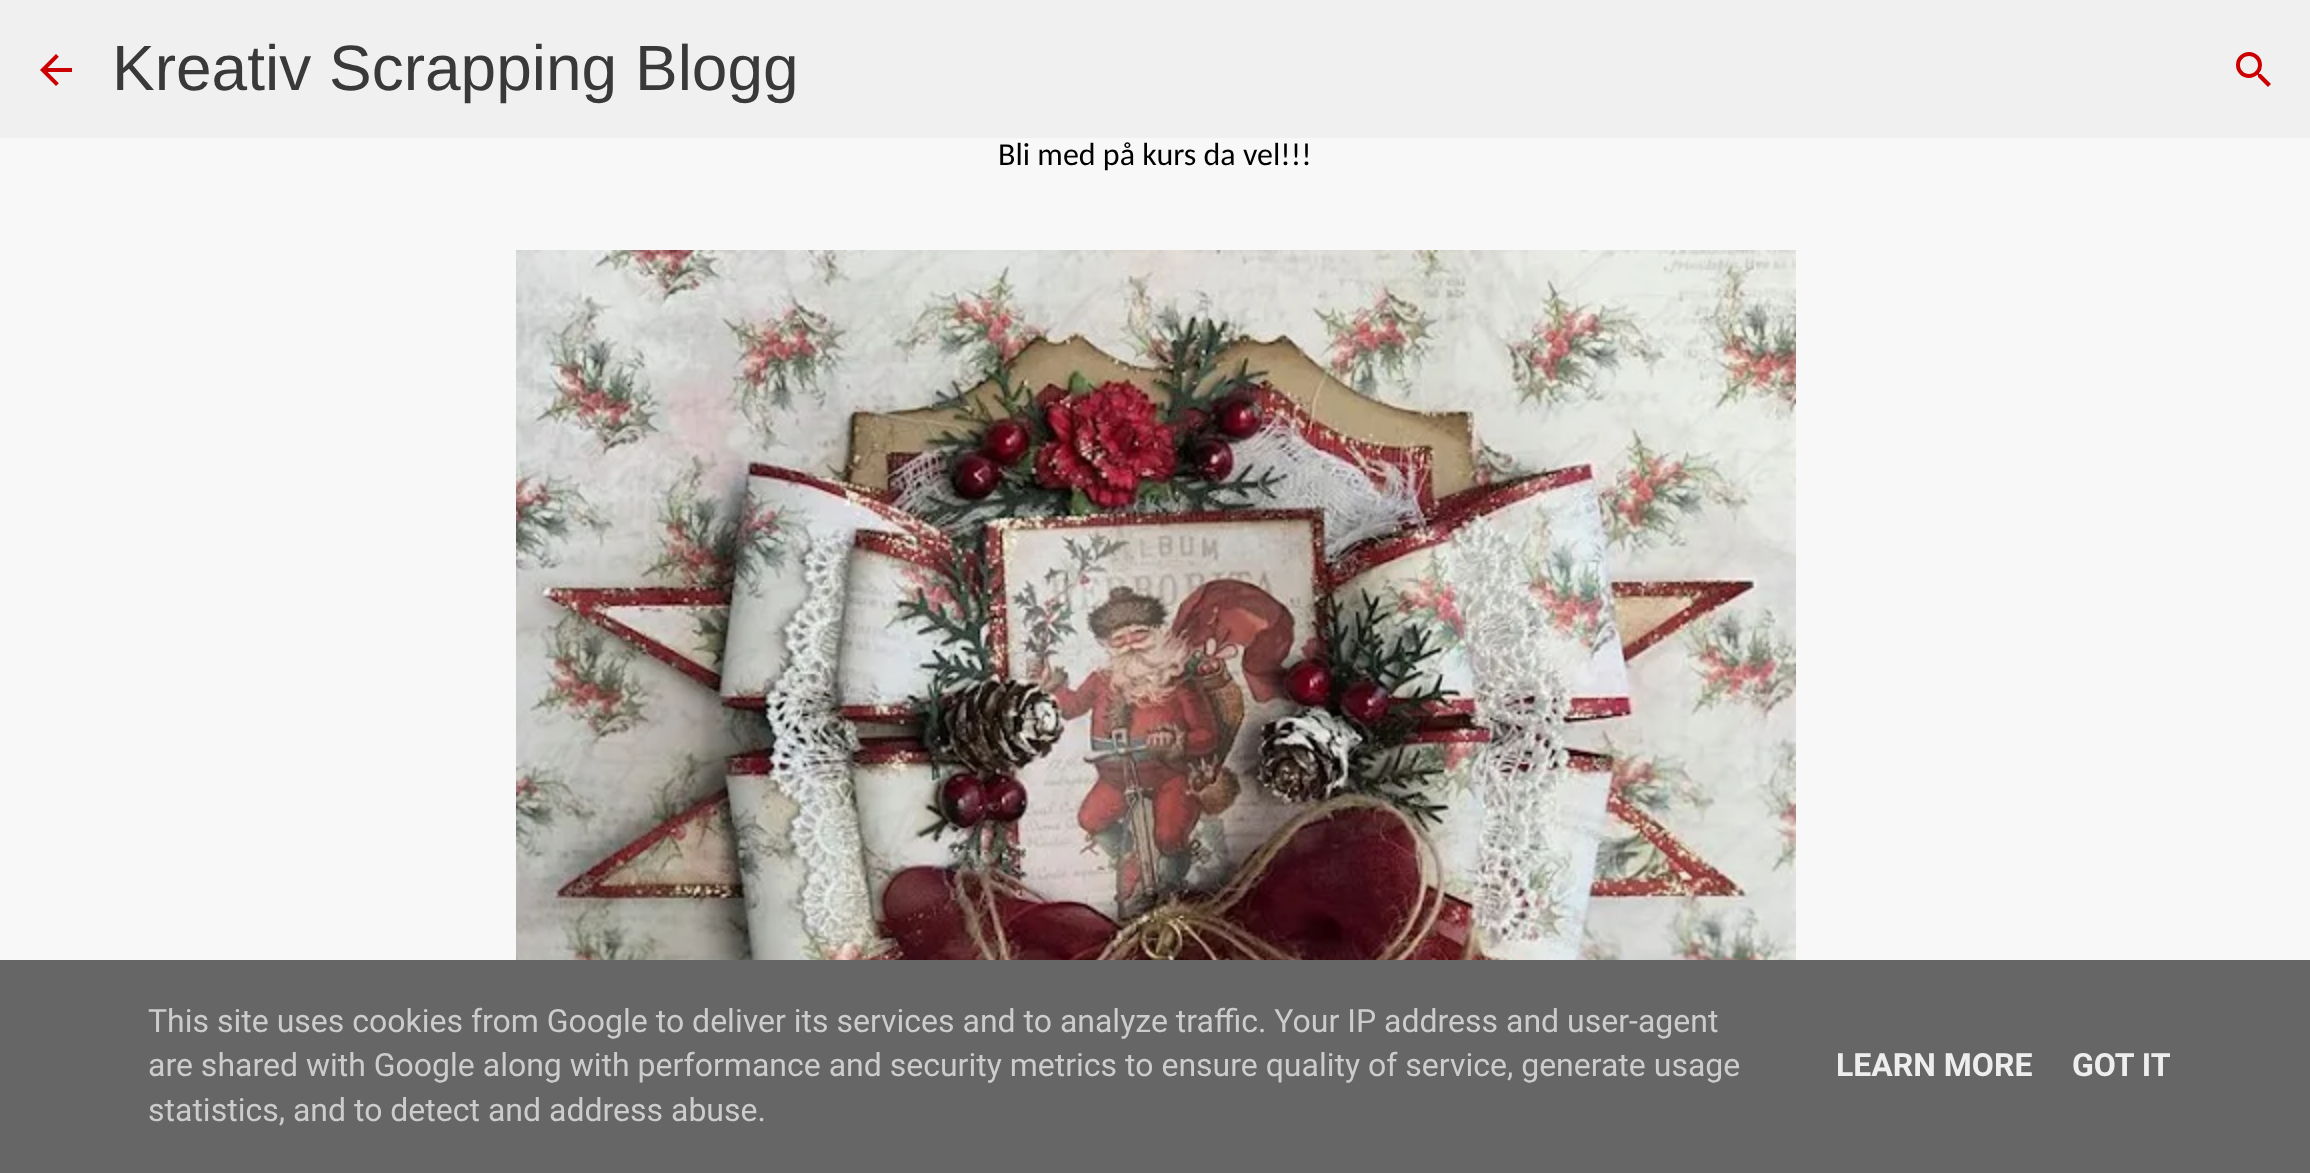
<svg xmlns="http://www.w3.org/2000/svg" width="2310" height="1173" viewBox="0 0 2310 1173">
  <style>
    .t1 { font: 64px Liberation Sans; fill: #393939; }
    .t2 { font: 32px Carlito; fill: #000; }
    .t3 { font: 32px Roboto; fill: #ccc; }
    .t4 { font: bold 32px Roboto; fill: #eee; }
  </style>
  <rect width="100%" height="100%" fill="#f8f8f8"/>
  <rect x="0" y="0" width="2310" height="138" fill="#f0f0f0"/>
  <image x="40" y="54" width="32" height="32" href="images/1.png"/>
  <text x="112" y="90" class="t1">Kreativ Scrapping Blogg</text>
  <image x="2236" y="52" width="35" height="35" href="images/2.png"/>
  <text x="998" y="165" class="t2">Bli med på kurs da vel!!!</text>
  <image x="516" y="250" width="1280" height="710" href="images/3.png"/>
  <rect x="0" y="960" width="2310" height="213" fill="#666"/>
  <text x="148" y="1032" class="t3">This site uses cookies from Google to deliver its services and to analyze traffic. Your IP address and user-agent</text>
  <text x="148" y="1076" class="t3">are shared with Google along with performance and security metrics to ensure quality of service, generate usage</text>
  <text x="148" y="1121" class="t3">statistics, and to detect and address abuse.</text>
  <text x="1836" y="1076" class="t4">LEARN MORE</text>
  <text x="2072" y="1076" class="t4">GOT IT</text>
</svg>
